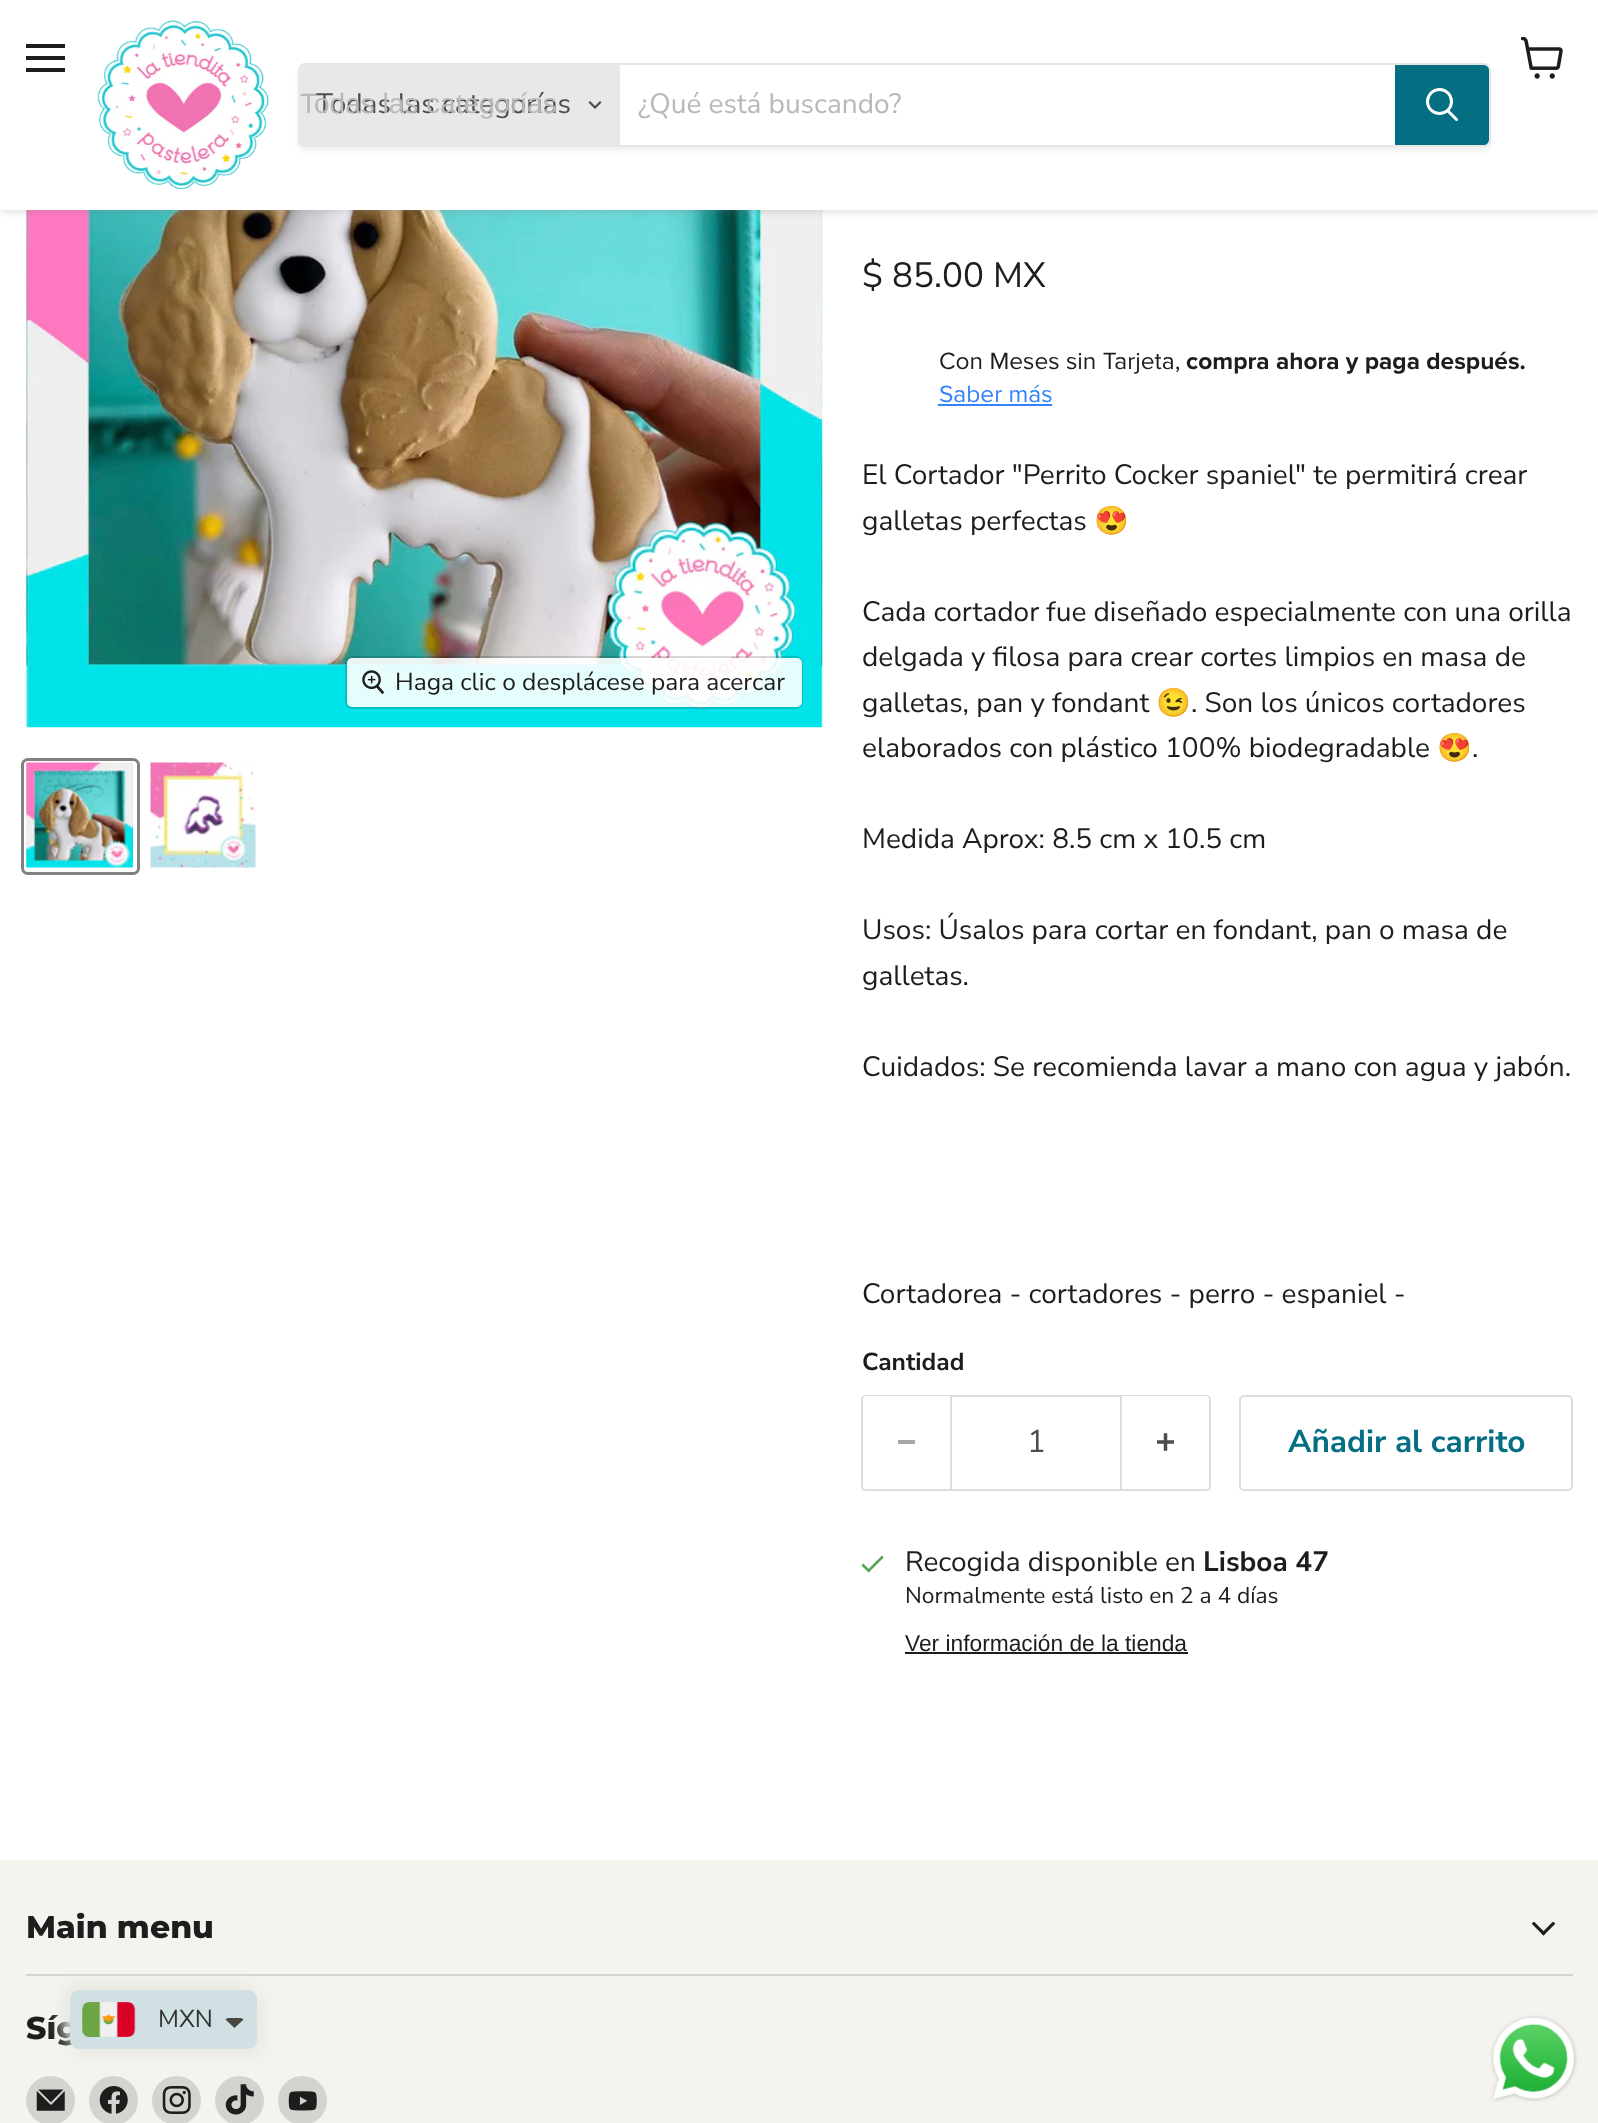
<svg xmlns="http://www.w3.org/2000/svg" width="1598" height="2123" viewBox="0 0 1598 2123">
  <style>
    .t1 { font: 28px Nunito Sans; fill: #4d4d4d; }
    .t2 { font: 28px Liberation Sans; fill: #b8b8b8; }
    .t3 { font: 28px Nunito Sans; fill: #b8b8b8; }
    .t4 { font: 24.5px Nunito Sans; fill: #1d1d1d; }
    .t5 { font: 35px Nunito Sans; fill: #1d1d1d; }
    .t6 { font: 24.5px Proxima Nova; fill: #1d1d1d; }
    .t7 { font: bold 24.5px Proxima Nova; fill: #1d1d1d; }
    .t8 { font: 24.5px Proxima Nova; fill: #3483fa; }
    .t9 { font: 28px Nunito Sans; fill: #1d1d1d; }
    .t10 { font: 28px Noto Color Emoji; fill: #1d1d1d; }
    .t11 { font: bold 24.5px Nunito Sans; fill: #1d1d1d; }
    .t12 { font: 31.5px Nunito Sans; fill: #4d4d4d; }
    .t13 { font: bold 31.5px Nunito Sans; fill: #046e82; }
    .t14 { font: bold 28px Nunito Sans; fill: #1d1d1d; }
    .t15 { font: 22.75px Nunito Sans; fill: #1d1d1d; }
    .t16 { font: 22.75px Liberation Sans; fill: #1d1d1d; }
    .t17 { font: 800 31.5px Montserrat; fill: #1d1d1d; }
    .t18 { font: 24.5px Nunito Sans; fill: #333; }
  </style>
  <defs>
    <clipPath id="clip1"><path d="M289 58H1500V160H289ZM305 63H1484C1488 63 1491 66 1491 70V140C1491 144 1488 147 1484 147H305C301 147 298 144 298 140V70C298 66 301 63 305 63Z" clip-rule="evenodd"/></clipPath>
  </defs>
  <rect width="100%" height="100%" fill="#fff"/>
  <image x="26" y="210" width="797" height="518" href="images/3.png"/>
  <rect x="0" y="2" width="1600" height="210" fill="#80808040" filter="blur(3.5px)"/>
  <rect x="0" y="0" width="1598" height="210" fill="#fff"/>
  <rect x="26" y="44" width="39" height="4" fill="#1d1d1d"/>
  <rect x="26" y="56" width="39" height="4" fill="#1d1d1d"/>
  <rect x="26" y="68" width="39" height="4" fill="#1d1d1d"/>
  <image x="1521" y="37" width="42" height="42" href="images/1.png"/>
  <image x="97" y="20" width="172" height="170" href="images/2.png"/>
  <g clip-path="url(#clip1)">
    <rect x="298" y="67" width="1193" height="84" rx="7" fill="#8080801c" filter="blur(2.5px)"/>
  </g>
  <rect x="299" y="64" width="1191" height="82" rx="6" fill="none" stroke="#80808033" stroke-width="2"/>
  <path d="M304 65H620V145H304C301 145 299 143 299 140V70C299 67 301 65 304 65Z" fill="#e8e8e8"/>
  <text x="316" y="113" class="t1">Todas las categorías</text>
  <text x="300" y="113" class="t2">Todas las categorías</text>
  <path d="M595 107.5L600 102.5M595 107.5L590 102.5" fill="none" stroke="#4d4d4d" stroke-width="2.2" stroke-linecap="square"/>
  <text x="638" y="113" class="t3">¿Qué está buscando?</text>
  <path d="M1396 66H1484C1486 66 1488 68 1488 70V140C1488 142 1486 144 1484 144H1396Z" fill="#046e82" stroke="#046e82" stroke-width="2"/>
  <path d="M1456.5 119.5L1448 111" fill="none" stroke="#fff" stroke-width="3" stroke-linecap="round"/>
  <circle cx="1439.5" cy="101.5" r="12" fill="none" stroke="#fff" stroke-width="3"/>
  <rect x="346" y="657" width="456" height="51" rx="6" fill="none" stroke="#00000026" stroke-width="2"/>
  <rect x="347" y="658" width="455" height="49" rx="5" fill="#ffffffe6"/>
  <image x="362" y="670" width="23" height="25" href="images/4.png"/>
  <text x="395" y="690" class="t4">Haga clic o desplácese para acercar</text>
  <rect x="22.5" y="759.5" width="116" height="114" rx="5.5" fill="none" stroke="#818181" stroke-width="3"/>
  <image x="26" y="762" width="107" height="106" href="images/5.png"/>
  <image x="150" y="762" width="106" height="106" href="images/6.png"/>
  <text x="862" y="287" class="t5">$ 85.00 MX</text>
  <text x="939" y="369" class="t6">Con Meses sin Tarjeta,</text>
  <text x="1186" y="369" class="t7">compra ahora y paga después.</text>
  <text x="939" y="402" class="t8">Saber más</text>
  <rect x="938" y="404" width="114" height="2" fill="#3483fa"/>
  <text x="862" y="484" class="t9">El Cortador "Perrito Cocker spaniel" te permitirá crear</text>
  <text x="862" y="530" class="t9">galletas perfectas</text>
  <text x="1094" y="530" class="t10">😍</text>
  <text x="862" y="621" class="t9">Cada cortador fue diseñado especialmente con una orilla</text>
  <text x="862" y="666" class="t9">delgada y filosa para crear cortes limpios en masa de</text>
  <text x="862" y="712" class="t9">galletas, pan y fondant</text>
  <text x="1156" y="712" class="t10">😉</text>
  <text x="1191" y="712" class="t9">. Son los únicos cortadores</text>
  <text x="862" y="757" class="t9">elaborados con plástico 100% biodegradable</text>
  <text x="1437" y="757" class="t10">😍</text>
  <text x="1472" y="757" class="t9">.</text>
  <text x="862" y="848" class="t9">Medida Aprox: 8.5 cm x 10.5 cm</text>
  <text x="862" y="939" class="t9">Usos: Úsalos para cortar en fondant, pan o masa de</text>
  <text x="862" y="985" class="t9">galletas.</text>
  <text x="862" y="1076" class="t9">Cuidados: Se recomienda lavar a mano con agua y jabón.</text>
  <text x="862" y="1303" class="t9">Cortadorea - cortadores - perro - espaniel -</text>
  <text x="862" y="1370" class="t11">Cantidad</text>
  <path d="M866 1395H950V1491H866C863 1491 861 1489 861 1486V1400C861 1397 863 1395 866 1395ZM866 1396H950V1489H866C864 1489 863 1488 863 1486V1400C863 1398 864 1396 866 1396Z" fill="#ddd" fill-rule="evenodd"/>
  <rect x="898" y="1440" width="17" height="4" fill="#a6a6a6"/>
  <rect x="951" y="1396" width="170" height="94" fill="none" stroke="#ddd" stroke-width="2"/>
  <text x="1027" y="1452" class="t12">1</text>
  <path d="M1122 1395H1206C1209 1395 1211 1397 1211 1400V1486C1211 1489 1209 1491 1206 1491H1122ZM1122 1396H1206C1208 1396 1209 1398 1209 1400V1486C1209 1488 1208 1489 1206 1489H1122Z" fill="#ddd" fill-rule="evenodd"/>
  <image x="1157" y="1433" width="17" height="18" href="images/7.png"/>
  <rect x="1240" y="1396" width="332" height="94" rx="4" fill="none" stroke="#ddd" stroke-width="2"/>
  <text x="1288" y="1452" class="t13">Añadir al carrito</text>
  <image x="861" y="1555" width="23" height="18" href="images/8.png"/>
  <text x="905" y="1571" class="t9">Recogida disponible en</text>
  <text x="1203" y="1571" class="t14">Lisboa 47</text>
  <text x="905" y="1603" class="t15">Normalmente está listo en 2 a 4 días</text>
  <text x="905" y="1651" class="t16">Ver información de la tienda</text>
  <rect x="905" y="1652" width="283" height="2" fill="#1d1d1d"/>
  <rect x="0" y="1860" width="1598" height="263" fill="#f5f3ed"/>
  <rect x="26" y="1974" width="1547" height="2" fill="#d5d3ce"/>
  <text x="26" y="1938" class="t17">Main menu</text>
  <image x="1531" y="1922" width="25" height="14" href="images/9.png"/>
  <text x="26" y="2039" class="t17">Síg</text>
  <circle cx="50.5" cy="2100.5" r="24.5" fill="#d5d3ce"/>
  <image x="36" y="2089" width="29" height="22" href="images/10.png"/>
  <circle cx="113.5" cy="2100.5" r="24.5" fill="#d5d3ce"/>
  <image x="99" y="2086" width="29" height="28" href="images/11.png"/>
  <circle cx="176.5" cy="2100.5" r="24.5" fill="#d5d3ce"/>
  <image x="162" y="2086" width="29" height="28" href="images/12.png"/>
  <circle cx="239.5" cy="2100.5" r="24.5" fill="#d5d3ce"/>
  <image x="225" y="2084" width="29" height="31" href="images/13.png"/>
  <circle cx="302.5" cy="2100.5" r="24.5" fill="#d5d3ce"/>
  <image x="288" y="2091" width="29" height="20" href="images/14.png"/>
  <rect x="63" y="1983" width="187" height="59" rx="9" fill="#e8e8e2" filter="blur(8px)"/>
  <rect x="77" y="1997" width="187" height="59" rx="9" fill="#e8e8e2" filter="blur(8px)"/>
  <rect x="70" y="1990" width="187" height="59" rx="9" fill="#d0e0e3"/>
  <image x="82" y="2002" width="54" height="35" href="images/15.png"/>
  <text x="158" y="2027" class="t18">MXN</text>
  <path d="M229 2018H240C241 2018 242.5 2018.5 243.5 2019.5L234.5 2028L225.5 2019.5C226.5 2018.5 228 2018 229 2018Z" fill="#474942"/>
  <image x="1490" y="2015" width="88" height="87" href="images/16.png"/>
</svg>
